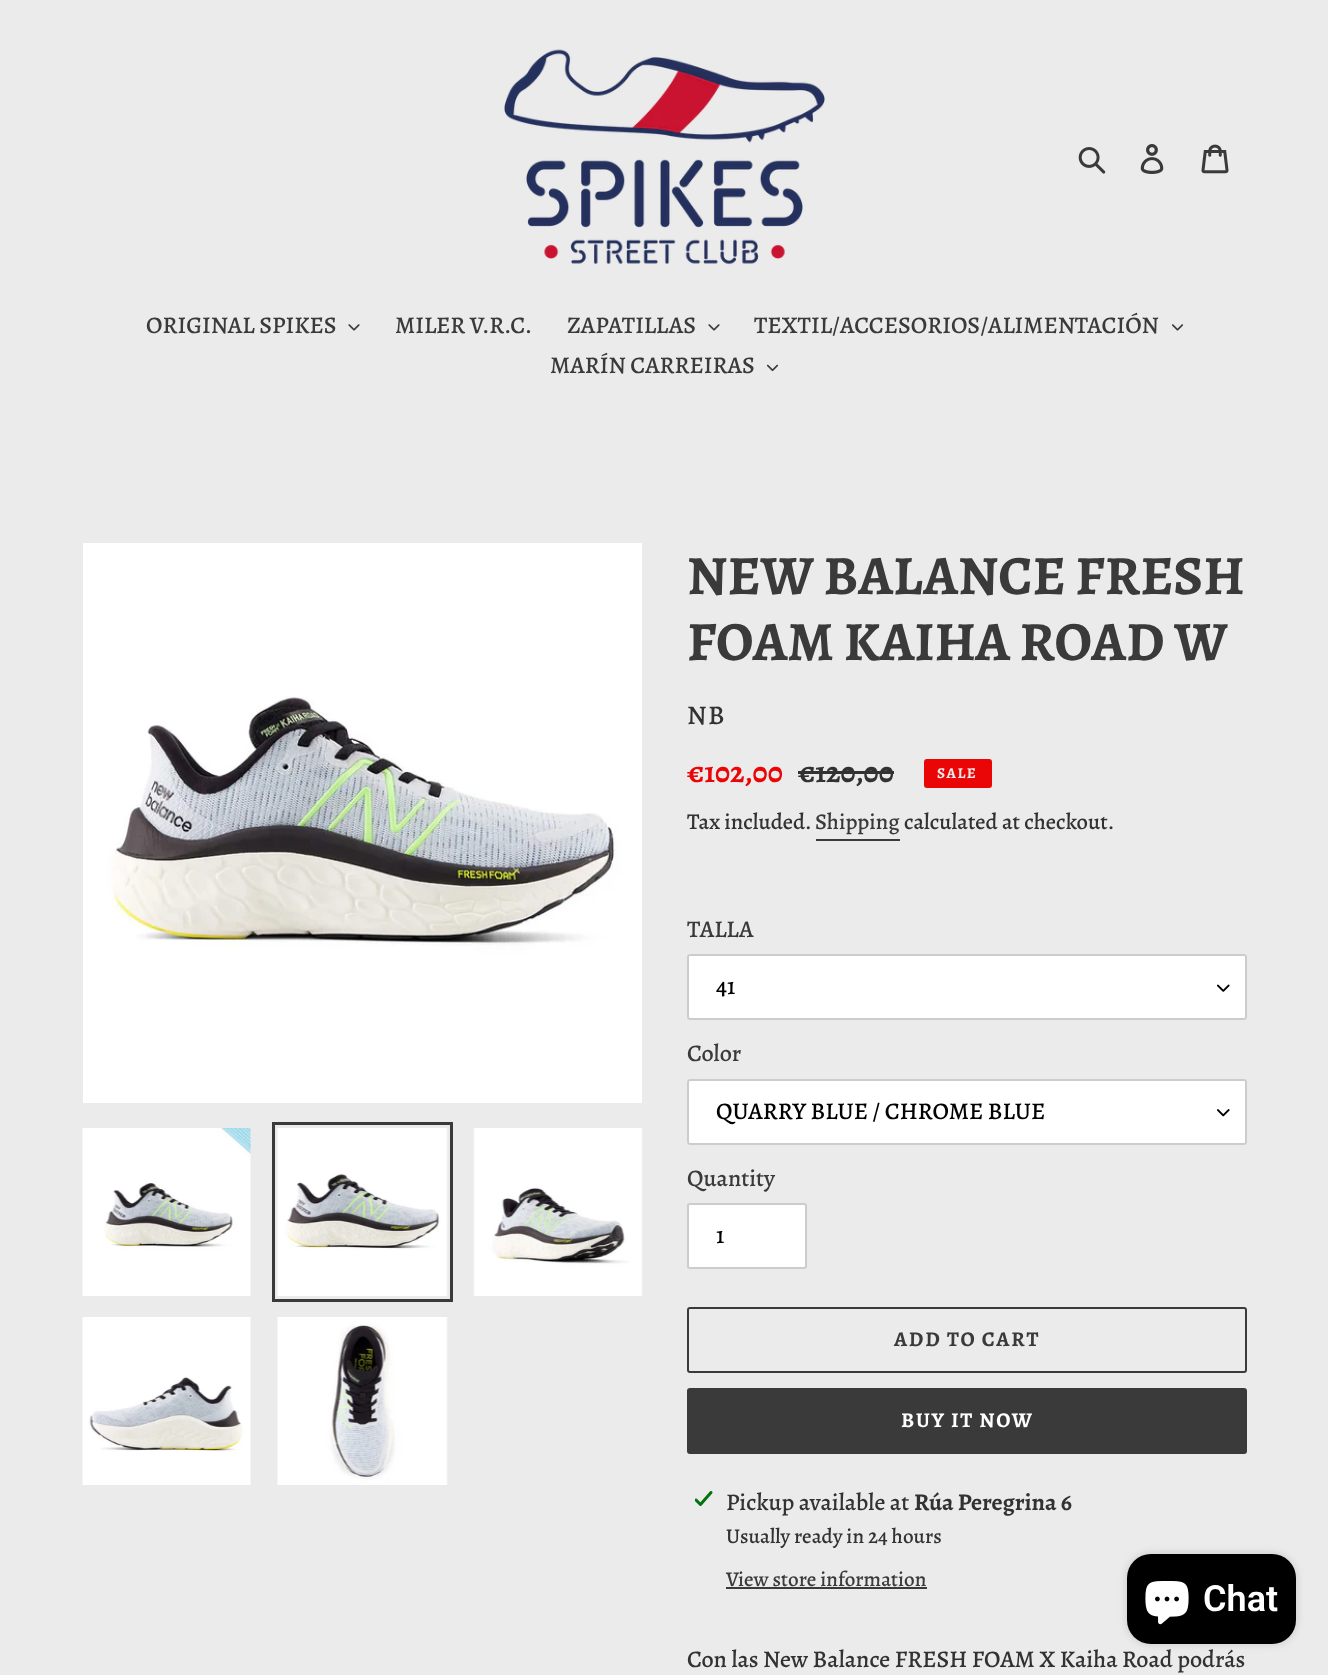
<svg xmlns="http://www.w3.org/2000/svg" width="1328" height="1675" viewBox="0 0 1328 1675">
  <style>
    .t1 { font: 500 24px Alegreya; fill: #3a3a3a; }
    .t2 { font: bold 55.5px Alegreya; fill: #3a3a3a; }
    .t3 { font: 500 27px Alegreya; letter-spacing: 1.5px; fill: #333232; }
    .t4 { font: bold 30px Alegreya; fill: #ea0606; }
    .t5 { font: bold 30px Alegreya; fill: #333232; }
    .t6 { font: bold 15px Alegreya; letter-spacing: 1.5px; fill: #ebebeb; }
    .t7 { font: 500 22.5px Alegreya; fill: #333232; }
    .t8 { font: 500 22.5px Alegreya; fill: #3a3a3a; }
    .t9 { font: 500 24px Alegreya; fill: #000; }
    .t10 { font: bold 21px Alegreya; letter-spacing: 1.75px; fill: #3a3a3a; }
    .t11 { font: bold 21px Alegreya; letter-spacing: 1.75px; fill: #fff; }
    .t12 { font: 500 24px Alegreya; fill: #333232; }
    .t13 { font: bold 24px Alegreya; fill: #333232; }
    .t14 { font: 500 21px Alegreya; fill: #333232; }
    .t15 { font: 500 21px Alegreya; fill: #3a3a3a; }
    .t16 { font: 600 36px Roboto; fill: #fff; }
  </style>
  <rect width="100%" height="100%" fill="#ebebeb"/>
  <image x="504" y="49" width="321" height="216" href="images/1.png"/>
  <image x="1078" y="147" width="28" height="27" href="images/2.png"/>
  <image x="1140" y="144" width="24" height="30" href="images/3.png"/>
  <image x="1201" y="144" width="28" height="30" href="images/4.png"/>
  <text x="146" y="333" class="t1">ORIGINAL SPIKES</text>
  <image x="348" y="324" width="12" height="7" href="images/5.png"/>
  <text x="395" y="333" class="t1">MILER V.R.C.</text>
  <text x="567" y="333" class="t1">ZAPATILLAS</text>
  <image x="708" y="324" width="12" height="7" href="images/5.png"/>
  <text x="754" y="333" class="t1">TEXTIL/ACCESORIOS/ALIMENTACIÓN</text>
  <image x="1172" y="324" width="11" height="7" href="images/6.png"/>
  <text x="550" y="373" class="t1">MARÍN CARREIRAS</text>
  <image x="767" y="364" width="12" height="8" href="images/7.png"/>
  <image x="83" y="543" width="559" height="560" href="images/8.png"/>
  <image x="82" y="1128" width="169" height="168" href="images/9.png"/>
  <rect x="273.5" y="1123.5" width="178" height="177" fill="none" stroke="#3a3a3a" stroke-width="3"/>
  <image x="277" y="1128" width="171" height="168" href="images/10.png"/>
  <image x="473" y="1128" width="170" height="168" href="images/11.png"/>
  <image x="82" y="1317" width="169" height="168" href="images/12.png"/>
  <image x="277" y="1317" width="171" height="168" href="images/13.png"/>
  <text x="687" y="594" class="t2">NEW BALANCE FRESH</text>
  <text x="687" y="660" class="t2">FOAM KAIHA ROAD W</text>
  <text x="687" y="724" class="t3">NB</text>
  <text x="687" y="782" class="t4">€102,00</text>
  <text x="798" y="782" class="t5">€120,00</text>
  <rect x="798" y="771" width="96" height="3" fill="#333232"/>
  <rect x="925" y="760" width="66" height="27" rx="2" fill="#ea0606" stroke="#ea0606" stroke-width="2"/>
  <text x="937" y="778" class="t6">SALE</text>
  <text x="687" y="829" class="t7">Tax included.</text>
  <text x="815" y="829" class="t8">Shipping</text>
  <rect x="816" y="839" width="84" height="2" fill="#3a3a3a"/>
  <text x="904" y="829" class="t7">calculated at checkout.</text>
  <text x="687" y="937" class="t1">TALLA</text>
  <rect x="687" y="954" width="560" height="66" rx="3" fill="#fff"/>
  <image x="1217" y="984" width="13" height="8" href="images/14.png"/>
  <rect x="688" y="955" width="558" height="64" rx="2" fill="none" stroke="#ccc" stroke-width="2"/>
  <text x="716" y="994" class="t9">41</text>
  <text x="687" y="1061" class="t1">Color</text>
  <rect x="687" y="1079" width="560" height="66" rx="3" fill="#fff"/>
  <image x="1217" y="1109" width="13" height="8" href="images/15.png"/>
  <rect x="688" y="1080" width="558" height="64" rx="2" fill="none" stroke="#ccc" stroke-width="2"/>
  <text x="716" y="1119" class="t9">QUARRY BLUE / CHROME BLUE</text>
  <text x="687" y="1186" class="t1">Quantity</text>
  <rect x="688" y="1204" width="118" height="64" rx="2" fill="#fff" stroke="#ccc" stroke-width="2"/>
  <text x="716" y="1243" class="t9">1</text>
  <rect x="688" y="1308" width="558" height="64" rx="2" fill="none" stroke="#3a3a3a" stroke-width="2"/>
  <text x="894" y="1346" class="t10">ADD TO CART</text>
  <rect x="687" y="1388" width="560" height="66" rx="3" fill="#3a3a3a"/>
  <text x="901" y="1427" class="t11">BUY IT NOW</text>
  <image x="695" y="1491" width="18" height="15" href="images/16.png"/>
  <text x="726" y="1510" class="t12">Pickup available at</text>
  <text x="914" y="1510" class="t13">Rúa Peregrina 6</text>
  <text x="726" y="1543" class="t14">Usually ready in 24 hours</text>
  <text x="726" y="1586" class="t15">View store information</text>
  <rect x="726" y="1587" width="201" height="2" fill="#3a3a3a"/>
  <text x="687" y="1667" class="t12">Con las New Balance FRESH FOAM X Kaiha Road podrás</text>
  <rect x="1127" y="1554" width="169" height="90" rx="24" fill="#00000026" filter="blur(4px)"/>
  <rect x="1127" y="1554" width="169" height="90" rx="24" fill="#000"/>
  <image x="1145" y="1581" width="44" height="44" href="images/17.png"/>
  <text x="1203" y="1611" class="t16">Chat</text>
</svg>
